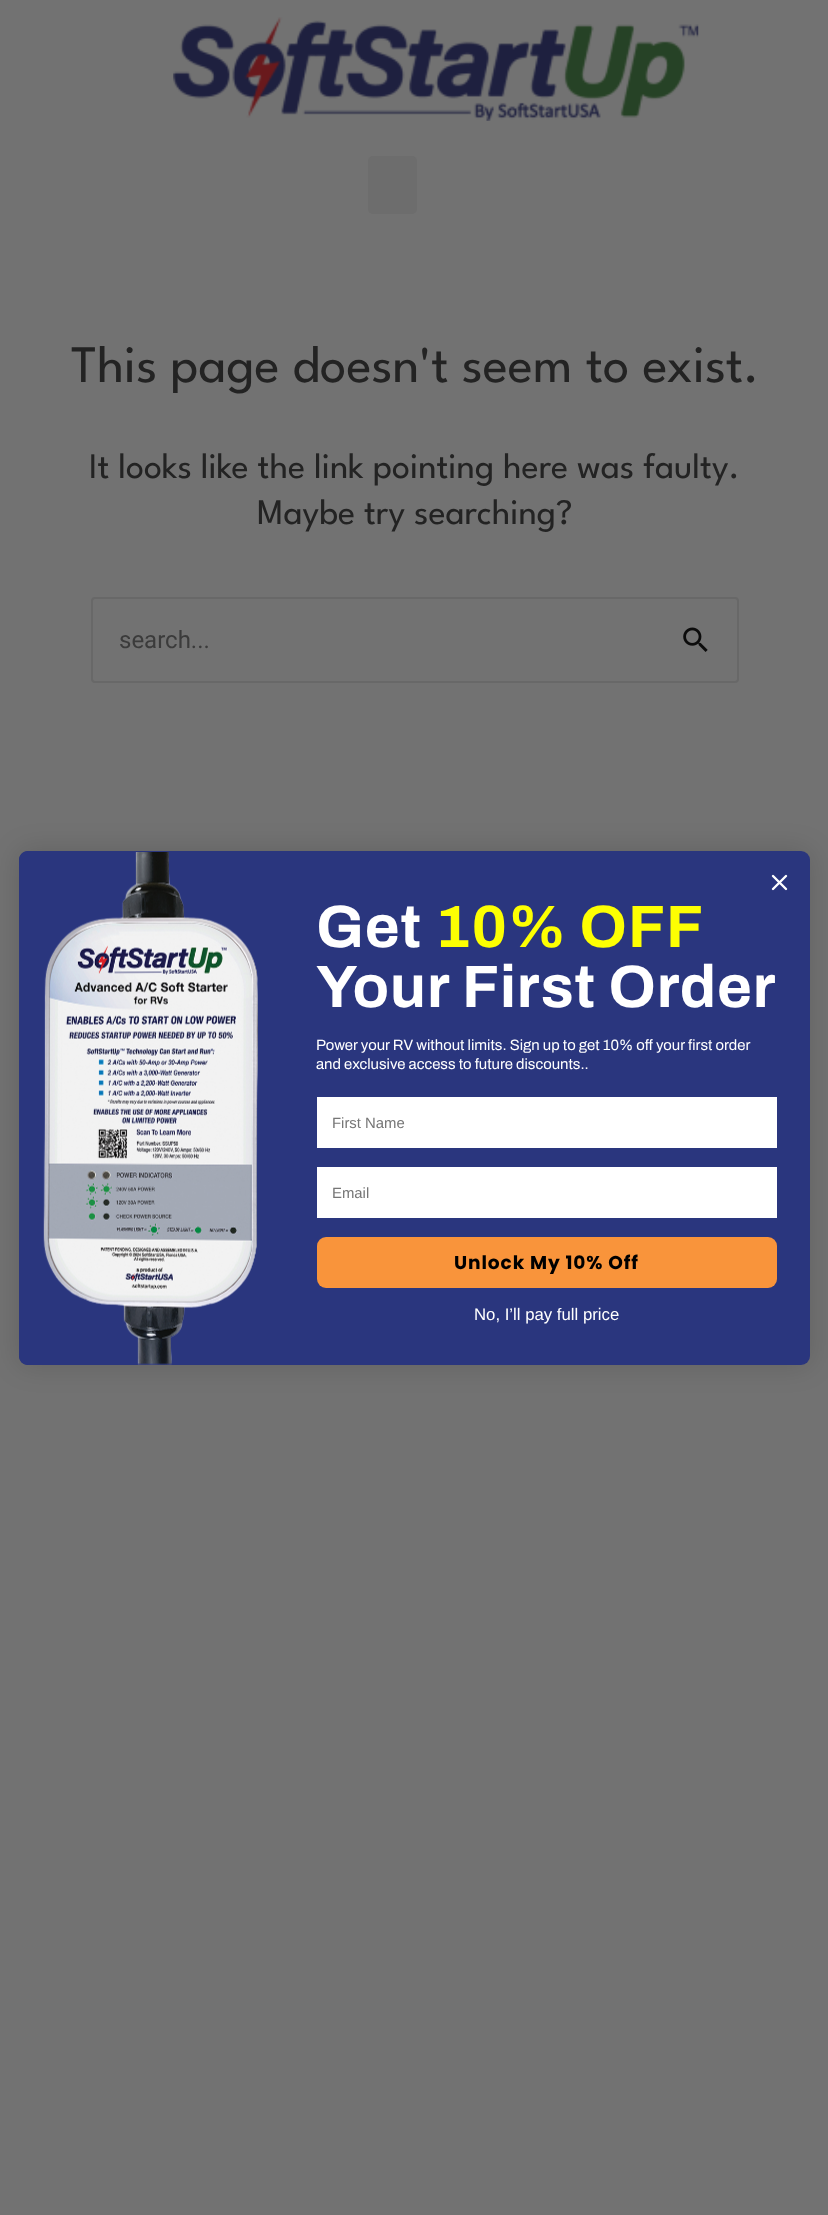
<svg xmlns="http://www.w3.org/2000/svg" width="828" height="2215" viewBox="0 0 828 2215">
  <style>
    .t1 { font: 100 52.5px League Spartan; fill: #232323; }
    .t2 { font: 100 35.9px League Spartan; fill: #232323; }
    .t3 { font: 24px Roboto; fill: #3b3b3b; }
    .t4 { font: bold 59.75px Archivo; letter-spacing: 0.9px; fill: #fff; }
    .t5 { font: bold 59.75px Archivo; letter-spacing: 0.9px; fill: #fdff02; }
    .t6 { font: 14.9px Archivo; fill: #fff; }
    .t7 { font: 14.9px Liberation Sans; fill: #767676; }
    .t8 { font: bold 18.6px Poppins; letter-spacing: 0.9px; fill: #000; }
    .t9 { font: 16.75px Liberation Sans; fill: #fff; }
  </style>
  <rect width="100%" height="100%" fill="#727272"/>
  <image x="173" y="17" width="526" height="104" href="images/1.png"/>
  <rect x="368" y="156" width="49" height="58" rx="5" fill="#6d6d6d"/>
  <text x="71" y="382" class="t1">This page doesn't seem to exist.</text>
  <text x="89" y="478" class="t2">It looks like the link pointing here was faulty.</text>
  <text x="257" y="524" class="t2">Maybe try searching?</text>
  <rect x="92" y="598" width="646" height="84" rx="3" fill="none" stroke="#686868" stroke-width="2"/>
  <text x="119" y="648" class="t3">search...</text>
  <image x="683" y="627" width="25" height="25" href="images/2.png"/>
  <rect x="19" y="851" width="791" height="514" rx="9" fill="#00000026" filter="blur(14px)"/>
  <rect x="19" y="851" width="791" height="514" rx="9" fill="#2a367e"/>
  <path d="M773 876L786 889M773 889L786 876Z" fill="none" stroke="#fff" stroke-width="2.4" stroke-linecap="round" stroke-linejoin="round"/>
  <path d="M28 851H284V1365H28C23 1365 19 1361 19 1356V860C19 855 23 851 28 851Z" fill="#2a367e"/>
  <image x="43" y="852" width="215" height="513" href="images/3.png"/>
  <text x="316" y="947" class="t4">Get</text>
  <text x="435" y="947" class="t5">10% OFF</text>
  <text x="316" y="1007" class="t4">Your First Order</text>
  <text x="316" y="1050" class="t6">Power your RV without limits. Sign up to get 10% off your first order</text>
  <text x="316" y="1069" class="t6">and exclusive access to future discounts..</text>
  <rect x="317" y="1097" width="460" height="51" fill="#fff"/>
  <text x="332" y="1128" class="t7">First Name</text>
  <rect x="317" y="1167" width="460" height="51" fill="#fff"/>
  <text x="332" y="1198" class="t7">Email</text>
  <rect x="317" y="1237" width="460" height="51" rx="9" fill="#f9943b"/>
  <text x="454" y="1269" class="t8">Unlock My 10% Off</text>
  <text x="474" y="1320" class="t9">No, I’ll pay full price</text>
</svg>
